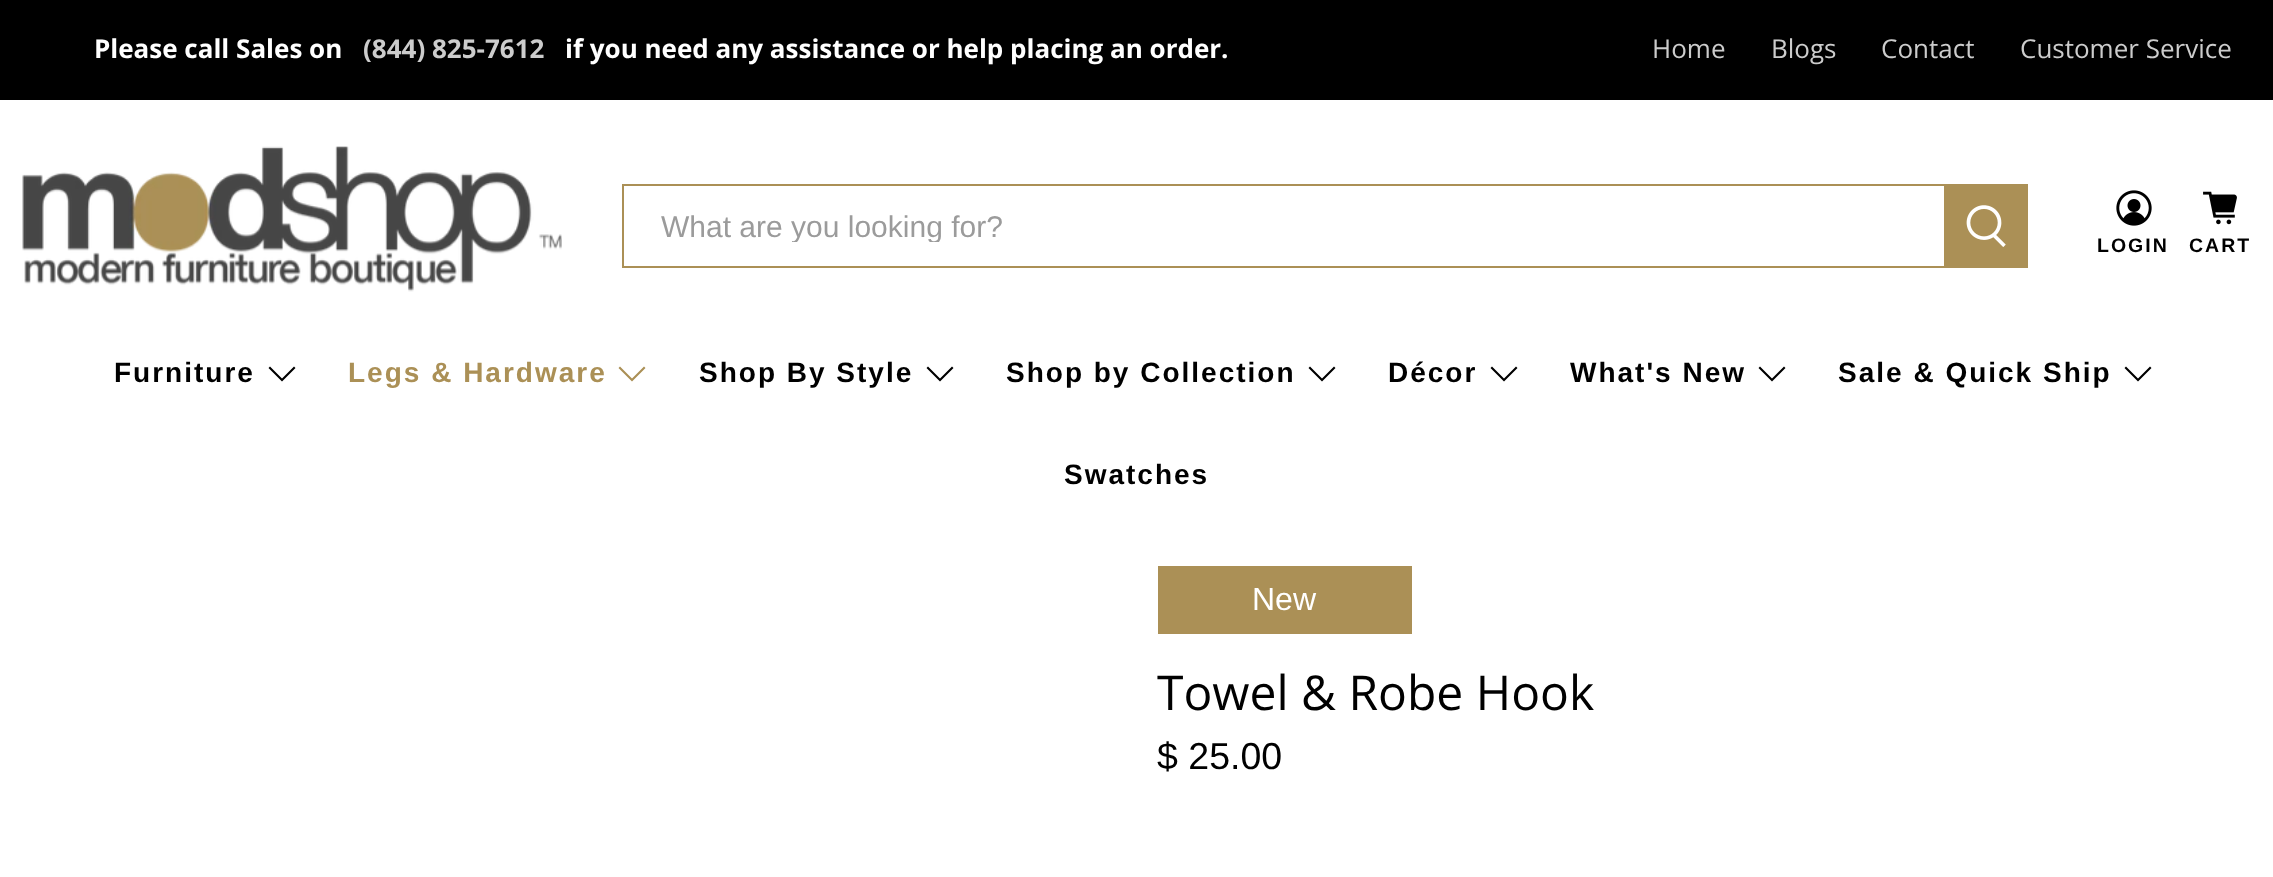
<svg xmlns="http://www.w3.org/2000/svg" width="2273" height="877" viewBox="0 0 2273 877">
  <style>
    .t1 { font: bold 26px Open Sans; fill: #fff; }
    .t2 { font: bold 26px Open Sans; fill: #ccc; }
    .t3 { font: 26px Open Sans; fill: #ccc; }
    .t4 { font: 30px Liberation Sans; fill: #9b9b9b; }
    .t5 { font: bold 19.5px Liberation Sans; letter-spacing: 2px; fill: #000; }
    .t6 { font: bold 28px Liberation Sans; letter-spacing: 2px; fill: #000; }
    .t7 { font: bold 28px Liberation Sans; letter-spacing: 2px; fill: #ab9056; }
    .t8 { font: 32px Liberation Sans; fill: #fff; }
    .t9 { font: 48px Open Sans; fill: #000; }
    .t10 { font: 37.5px Liberation Sans; fill: #000; }
  </style>
  <defs>
    <clipPath id="clip1"><rect x="660" y="208" width="1248" height="34"/></clipPath>
  </defs>
  <rect width="100%" height="100%" fill="#fff"/>
  <rect x="0" y="0" width="2273" height="100" fill="#000"/>
  <text x="94" y="58" class="t1">Please call Sales on</text>
  <text x="363" y="58" class="t2">(844) 825-7612</text>
  <text x="565" y="58" class="t1">if you need any assistance or help placing an order.</text>
  <text x="1652" y="58" class="t3">Home</text>
  <text x="1771" y="58" class="t3">Blogs</text>
  <text x="1881" y="58" class="t3">Contact</text>
  <text x="2020" y="58" class="t3">Customer Service</text>
  <image x="22" y="146" width="540" height="146" href="images/1.png"/>
  <rect x="623" y="185" width="1322" height="82" fill="none" stroke="#ab9056" stroke-width="2"/>
  <g clip-path="url(#clip1)">
    <text x="661" y="237" class="t4">What are you looking for?</text>
  </g>
  <rect x="1946" y="184" width="82" height="84" fill="#ab9056"/>
  <image x="1966" y="205" width="40" height="42" href="images/2.png"/>
  <image x="2116" y="190" width="36" height="36" href="images/3.png"/>
  <text x="2097" y="252" class="t5">LOGIN</text>
  <image x="2203" y="191" width="34" height="34" href="images/4.png"/>
  <text x="2189" y="252" class="t5">CART</text>
  <text x="114" y="382" class="t6">Furniture</text>
  <path d="M282 381.5L268.5 368L270 366.5L282 378.5L294 366.5L295.5 368Z" fill="#000"/>
  <text x="348" y="382" class="t7">Legs &amp; Hardware</text>
  <path d="M632 381.5L618.5 368L620 366.5L632 378.5L644 366.5L645.5 368Z" fill="#ab9056"/>
  <text x="699" y="382" class="t6">Shop By Style</text>
  <path d="M940 381.5L926.5 368L928 366.5L940 378.5L952 366.5L953.5 368Z" fill="#000"/>
  <text x="1006" y="382" class="t6">Shop by Collection</text>
  <path d="M1322 381.5L1308.5 368L1310 366.5L1322 378.5L1334 366.5L1335.5 368Z" fill="#000"/>
  <text x="1388" y="382" class="t6">Décor</text>
  <path d="M1504 381.5L1490.5 368L1492 366.5L1504 378.5L1516 366.5L1517.5 368Z" fill="#000"/>
  <text x="1570" y="382" class="t6">What's New</text>
  <path d="M1772 381.5L1758.5 368L1760 366.5L1772 378.5L1784 366.5L1785.5 368Z" fill="#000"/>
  <text x="1838" y="382" class="t6">Sale &amp; Quick Ship</text>
  <path d="M2138 381.5L2124.5 368L2126 366.5L2138 378.5L2150 366.5L2151.5 368Z" fill="#000"/>
  <text x="1064" y="484" class="t6">Swatches</text>
  <rect x="1158" y="566" width="254" height="68" fill="#ab9056"/>
  <text x="1252" y="610" class="t8">New</text>
  <text x="1157" y="710" class="t9">Towel &amp; Robe Hook</text>
  <text x="1157" y="769" class="t10">$ 25.00</text>
</svg>
